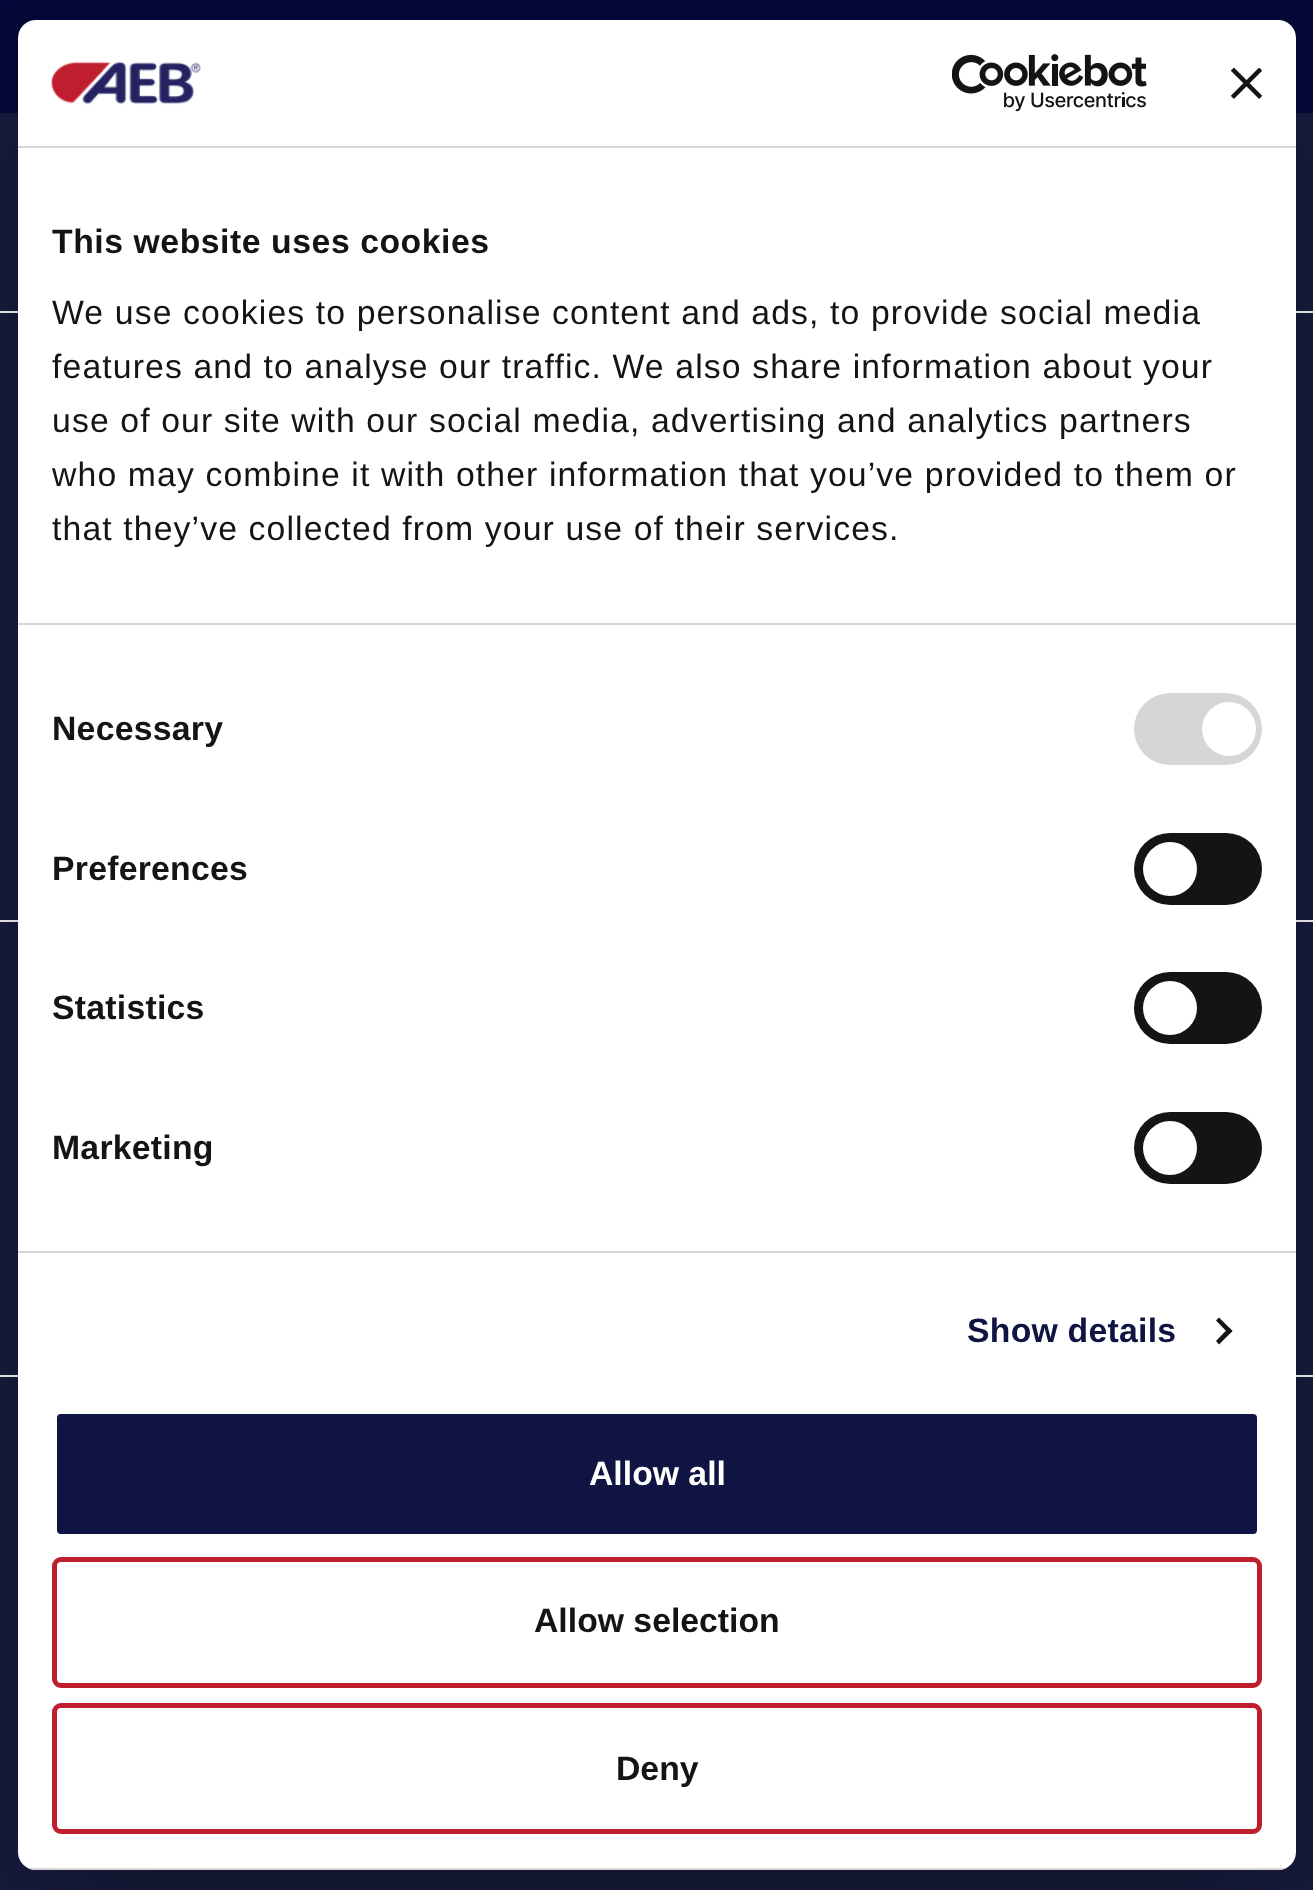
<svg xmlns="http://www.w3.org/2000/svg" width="1313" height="1890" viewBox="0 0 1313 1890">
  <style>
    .t1 { font: bold 33.75px Liberation Sans; letter-spacing: 0.55px; fill: #141414; }
    .t2 { font: 33.75px Liberation Sans; letter-spacing: 1.12px; fill: #141414; }
    .t3 { font: bold 33.75px Liberation Sans; letter-spacing: 0.25px; fill: #141414; }
    .t4 { font: bold 33.75px Liberation Sans; letter-spacing: 0.25px; fill: #0f1442; }
    .t5 { font: bold 33.75px Liberation Sans; fill: #fff; }
    .t6 { font: bold 33.75px Liberation Sans; fill: #141414; }
  </style>
  <defs>
    <clipPath id="clip1"><rect x="18" y="20" width="1278" height="1850" rx="18"/></clipPath>
  </defs>
  <rect width="100%" height="100%" fill="#181d40"/>
  <rect x="0" y="0" width="1313" height="113" fill="#030838"/>
  <rect x="0" y="1375" width="1313" height="2" fill="#fff"/>
  <rect x="0" y="311" width="1313" height="2" fill="#fff"/>
  <rect x="0" y="920" width="1313" height="2" fill="#fff"/>
  <rect x="18" y="92" width="1278" height="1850" rx="18" fill="#0000004d" filter="blur(76.5px)"/>
  <rect x="18" y="20" width="1278" height="1850" rx="18" fill="#fff"/>
  <rect x="18" y="146" width="1278" height="2" fill="#d6d6d6"/>
  <image x="51" y="61" width="150" height="44" href="images/1.png"/>
  <image x="952" y="54" width="195" height="58" href="images/2.png"/>
  <image x="1231" y="68" width="31" height="31" href="images/3.png"/>
  <rect x="18" y="623" width="1278" height="2" fill="#d6d6d6"/>
  <text x="52" y="253" class="t1">This website uses cookies</text>
  <text x="52" y="324" class="t2">We use cookies to personalise content and ads, to provide social media</text>
  <text x="52" y="378" class="t2">features and to analyse our traffic. We also share information about your</text>
  <text x="52" y="432" class="t2">use of our site with our social media, advertising and analytics partners</text>
  <text x="52" y="486" class="t2">who may combine it with other information that you’ve provided to them or</text>
  <text x="52" y="540" class="t2">that they’ve collected from your use of their services.</text>
  <rect x="18" y="1251" width="1278" height="2" fill="#d6d6d6"/>
  <text x="52" y="740" class="t3">Necessary</text>
  <rect x="1134" y="693" width="128" height="72" rx="36" fill="#d6d6d6"/>
  <circle cx="1229" cy="729" r="27" fill="#fff"/>
  <text x="52" y="880" class="t3">Preferences</text>
  <rect x="1134" y="833" width="128" height="72" rx="36" fill="#141414"/>
  <circle cx="1170" cy="869" r="27" fill="#fff"/>
  <text x="52" y="1019" class="t3">Statistics</text>
  <rect x="1134" y="972" width="128" height="72" rx="36" fill="#141414"/>
  <circle cx="1170" cy="1008" r="27" fill="#fff"/>
  <text x="52" y="1159" class="t3">Marketing</text>
  <rect x="1134" y="1112" width="128" height="72" rx="36" fill="#141414"/>
  <circle cx="1170" cy="1148" r="27" fill="#fff"/>
  <text x="967" y="1342" class="t4">Show details</text>
  <path d="M1219 1317.5L1232.5 1331L1229 1334L1216 1320.5Z" fill="#141414"/>
  <path d="M1229 1327.5L1232.5 1331L1219 1344.5L1216 1341Z" fill="#141414"/>
  <g clip-path="url(#clip1)">
    <rect x="28" y="1868" width="1258" height="2" fill="#d6d6d6"/>
  </g>
  <rect x="54.5" y="1411.5" width="1205" height="125" rx="6.5" fill="#0f1442" stroke="#fff" stroke-width="5"/>
  <text x="589" y="1485" class="t5">Allow all</text>
  <rect x="54.5" y="1559.5" width="1205" height="126" rx="6.5" fill="none" stroke="#be1e2d" stroke-width="5"/>
  <text x="534" y="1632" class="t6">Allow selection</text>
  <rect x="54.5" y="1705.5" width="1205" height="126" rx="6.5" fill="none" stroke="#be1e2d" stroke-width="5"/>
  <text x="616" y="1780" class="t6">Deny</text>
</svg>
